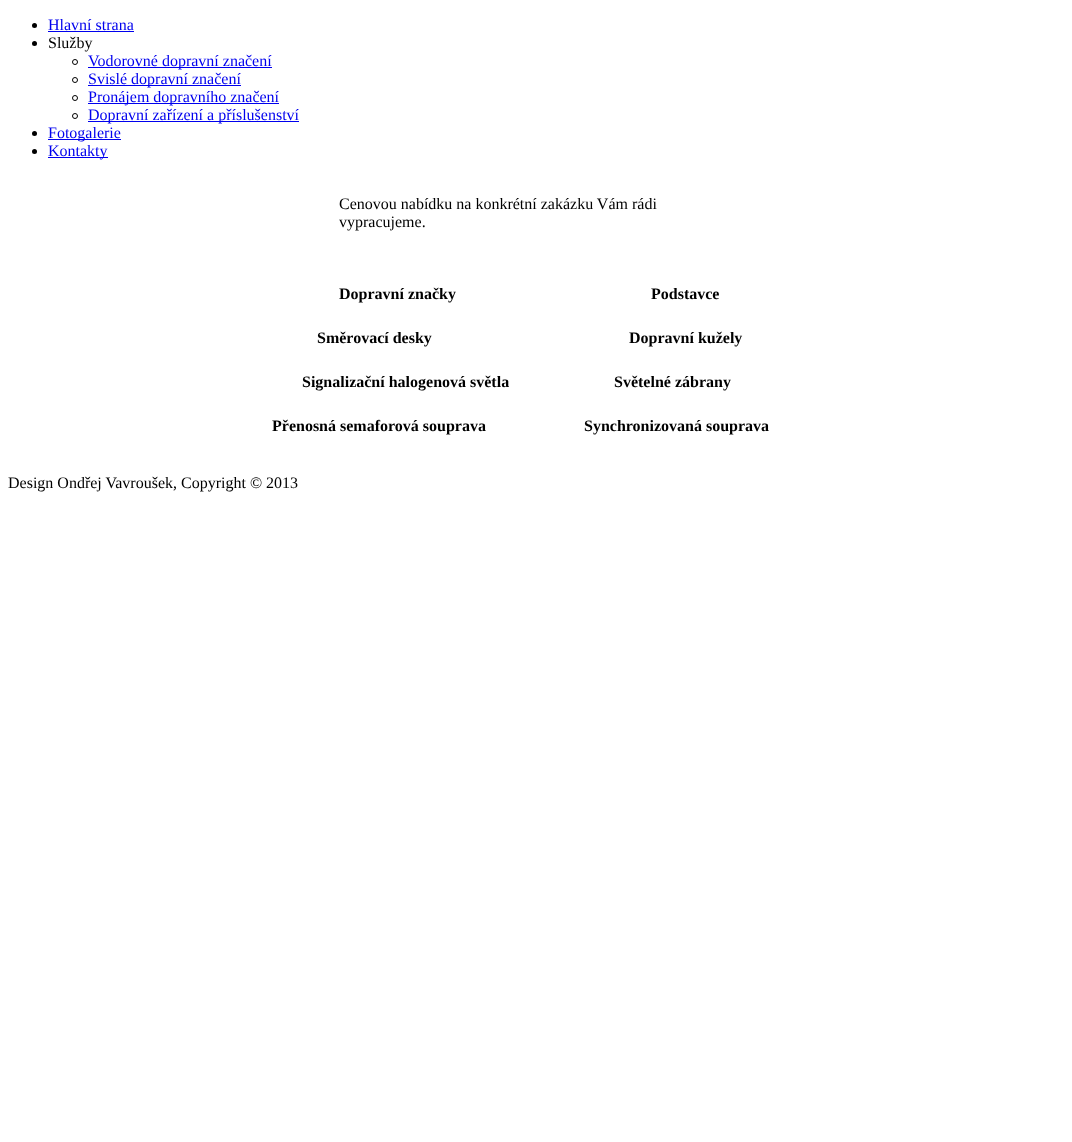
<svg xmlns="http://www.w3.org/2000/svg" width="1072" height="1142" viewBox="0 0 1072 1142">
  <style>
    .t1 { font: 16px Liberation Serif; fill: #00e; }
    .t2 { font: 16px Liberation Serif; fill: #000; }
    .t3 { font: bold 16px Liberation Serif; fill: #000; }
  </style>
  <rect width="100%" height="100%" fill="#fff"/>
  <circle cx="34.5" cy="25.5" r="2.5" fill="#000"/>
  <text x="48" y="30" class="t1">Hlavní strana</text>
  <rect x="48" y="31" width="86" height="1" fill="#00e"/>
  <circle cx="34.5" cy="43.5" r="2.5" fill="#000"/>
  <text x="48" y="48" class="t2">Služby</text>
  <circle cx="75" cy="62" r="2.5" fill="none" stroke="#000"/>
  <rect x="88" y="67" width="184" height="1" fill="#00e"/>
  <text x="88" y="66" class="t1">Vodorovné dopravní značení</text>
  <circle cx="75" cy="80" r="2.5" fill="none" stroke="#000"/>
  <rect x="88" y="85" width="153" height="1" fill="#00e"/>
  <text x="88" y="84" class="t1">Svislé dopravní značení</text>
  <circle cx="75" cy="98" r="2.5" fill="none" stroke="#000"/>
  <rect x="88" y="103" width="191" height="1" fill="#00e"/>
  <text x="88" y="102" class="t1">Pronájem dopravního značení</text>
  <circle cx="75" cy="116" r="2.5" fill="none" stroke="#000"/>
  <rect x="88" y="121" width="211" height="1" fill="#00e"/>
  <text x="88" y="120" class="t1">Dopravní zařízení a příslušenství</text>
  <circle cx="34.5" cy="133.5" r="2.5" fill="#000"/>
  <rect x="48" y="139" width="73" height="1" fill="#00e"/>
  <text x="48" y="138" class="t1">Fotogalerie</text>
  <circle cx="34.5" cy="151.5" r="2.5" fill="#000"/>
  <rect x="48" y="157" width="60" height="1" fill="#00e"/>
  <text x="48" y="156" class="t1">Kontakty</text>
  <text x="339" y="209" class="t2">Cenovou nabídku na konkrétní zakázku Vám rádi</text>
  <text x="339" y="227" class="t2">vypracujeme.</text>
  <text x="339" y="299" class="t3">Dopravní značky</text>
  <text x="651" y="299" class="t3">Podstavce</text>
  <text x="317" y="343" class="t3">Směrovací desky</text>
  <text x="629" y="343" class="t3">Dopravní kužely</text>
  <text x="302" y="387" class="t3">Signalizační halogenová světla</text>
  <text x="614" y="387" class="t3">Světelné zábrany</text>
  <text x="272" y="431" class="t3">Přenosná semaforová souprava</text>
  <text x="584" y="431" class="t3">Synchronizovaná souprava</text>
  <text x="8" y="488" class="t2">Design Ondřej Vavroušek, Copyright © 2013</text>
</svg>
